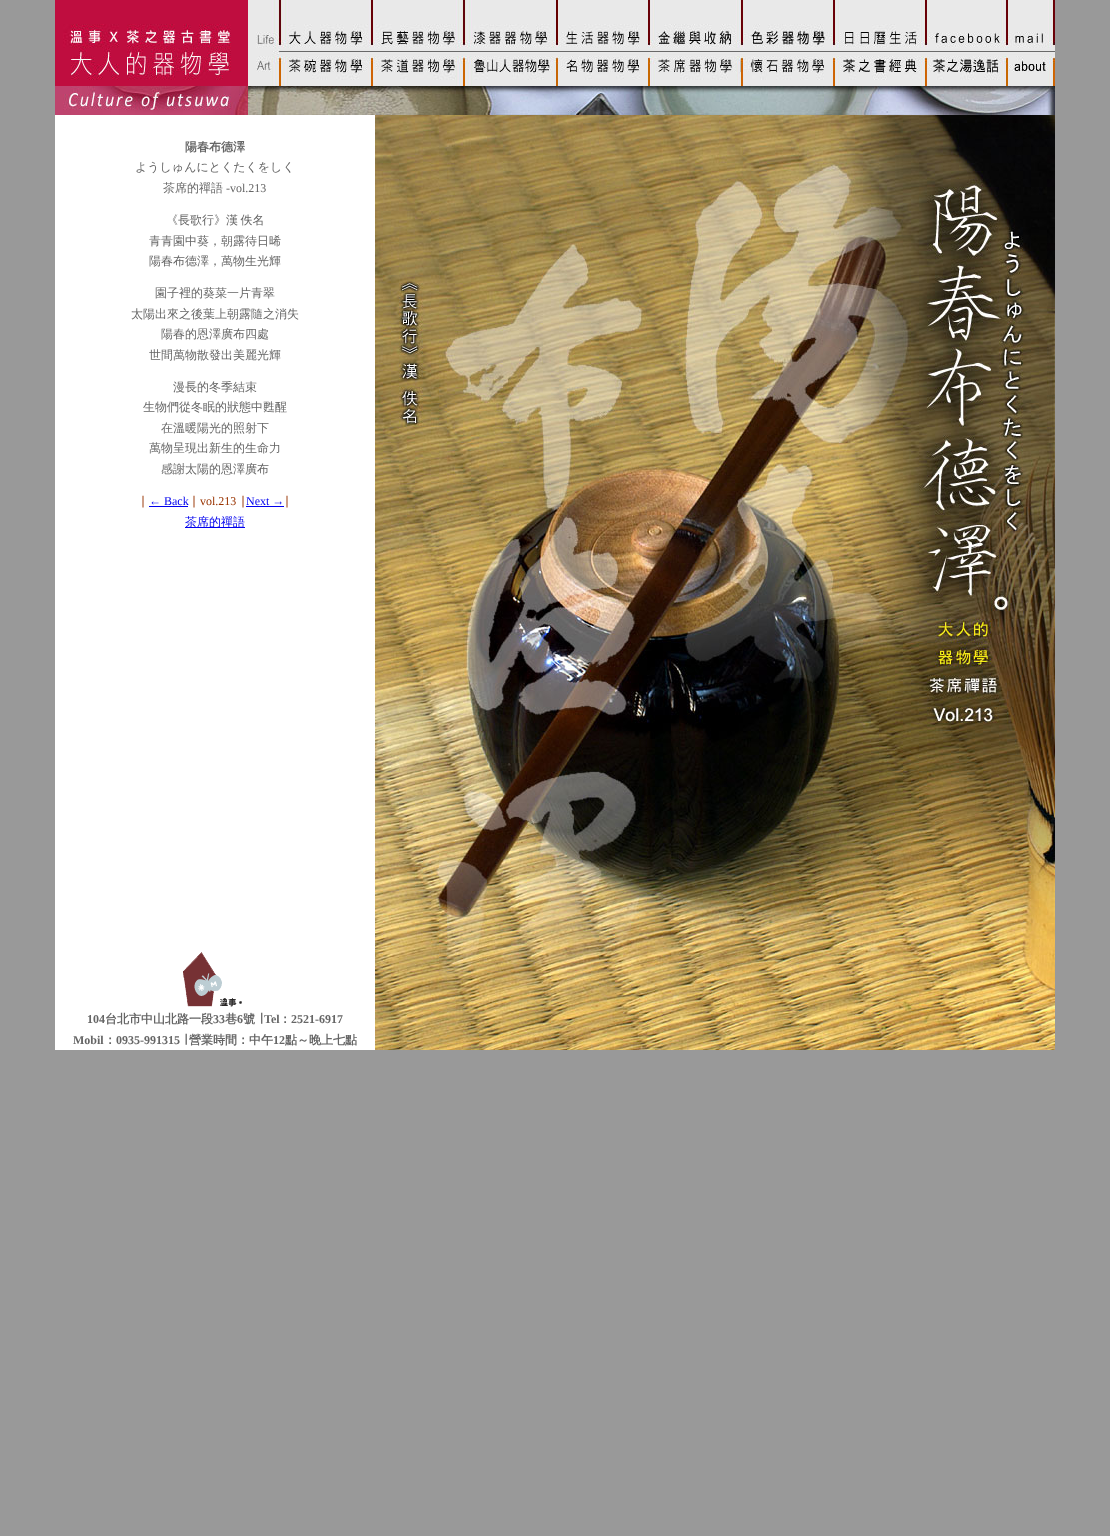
<svg xmlns="http://www.w3.org/2000/svg" width="1110" height="1536" viewBox="0 0 1110 1536">
  <style>
    .t1 { font: bold 12px WenQuanYi Zen Hei; fill: #666; }
    .t2 { font: 500 12px WenQuanYi Zen Hei; fill: #666; }
    .t3 { font: 12px Liberation Serif; fill: #666; }
    .t4 { font: 12px DejaVu Sans; fill: #930; }
    .t5 { font: 12px Liberation Serif; fill: #00e; }
    .t6 { font: 12px Liberation Serif; fill: #930; }
    .t7 { font: 500 12px WenQuanYi Zen Hei; fill: #00e; }
    .t8 { font: bold 12px Liberation Serif; fill: #666; }
  </style>
  <rect width="100%" height="100%" fill="#999"/>
  <image x="55" y="0" width="193" height="86" href="images/1.png"/>
  <image x="248" y="0" width="807" height="86" href="images/2.png"/>
  <image x="55" y="86" width="193" height="29" href="images/3.png"/>
  <image x="248" y="86" width="807" height="29" href="images/4.png"/>
  <rect x="55" y="115" width="320" height="935" fill="#fff"/>
  <text x="185" y="151" class="t1">陽春布德澤</text>
  <text x="135" y="171" class="t2">ようしゅんにとくたくをしく</text>
  <text x="163" y="192" class="t2">茶席的禪語</text>
  <text x="226" y="192" class="t3">-vol.213</text>
  <text x="166" y="224" word-spacing="-1" class="t2">《長歌行》漢 佚名</text>
  <text x="149" y="245" class="t2">青青園中葵，朝露待日晞</text>
  <text x="149" y="265" class="t2">陽春布德澤，萬物生光輝</text>
  <text x="155" y="297" class="t2">園子裡的葵菜一片青翠</text>
  <text x="131" y="318" class="t2">太陽出來之後葉上朝露隨之消失</text>
  <text x="161" y="338" class="t2">陽春的恩澤廣布四處</text>
  <text x="149" y="359" class="t2">世間萬物散發出美麗光輝</text>
  <text x="173" y="391" class="t2">漫長的冬季結束</text>
  <text x="143" y="411" class="t2">生物們從冬眠的狀態中甦醒</text>
  <text x="161" y="432" class="t2">在溫暖陽光的照射下</text>
  <text x="149" y="452" class="t2">萬物呈現出新生的生命力</text>
  <text x="161" y="473" class="t2">感謝太陽的恩澤廣布</text>
  <text x="140" y="505" class="t4">∣</text>
  <text x="149" y="505" class="t5">← Back</text>
  <rect x="149" y="506" width="39" height="1" fill="#00e"/>
  <text x="191" y="505" class="t4">∣</text>
  <text x="200" y="505" class="t6">vol.213</text>
  <text x="240" y="505" class="t4">∣</text>
  <text x="246" y="505" class="t5">Next →</text>
  <rect x="246" y="506" width="38" height="1" fill="#00e"/>
  <text x="284" y="505" class="t4">∣</text>
  <rect x="185" y="527" width="60" height="1" fill="#00e"/>
  <text x="185" y="526" class="t7">茶席的禪語</text>
  <image x="375" y="115" width="680" height="935" href="images/5.png"/>
  <image x="183" y="952" width="59" height="55" href="images/6.png"/>
  <text x="87" y="1023" class="t8">104</text>
  <text x="105" y="1023" class="t1">台北市中山北路一段</text>
  <text x="213" y="1023" class="t8">33</text>
  <text x="225" y="1023" class="t1">巷</text>
  <text x="237" y="1023" class="t8">6</text>
  <text x="243" y="1023" class="t1">號 ∣</text>
  <text x="264" y="1023" class="t8">Tel</text>
  <text x="279" y="1023" class="t1">：</text>
  <text x="291" y="1023" class="t8">2521-6917</text>
  <text x="73" y="1044" class="t8">Mobil</text>
  <text x="104" y="1044" class="t1">：</text>
  <text x="116" y="1044" class="t8">0935-991315</text>
  <text x="183" y="1044" class="t1">∣</text>
  <text x="189" y="1044" class="t1">營業時間：中午</text>
  <text x="273" y="1044" class="t8">12</text>
  <text x="285" y="1044" class="t1">點～晚上七點</text>
</svg>
